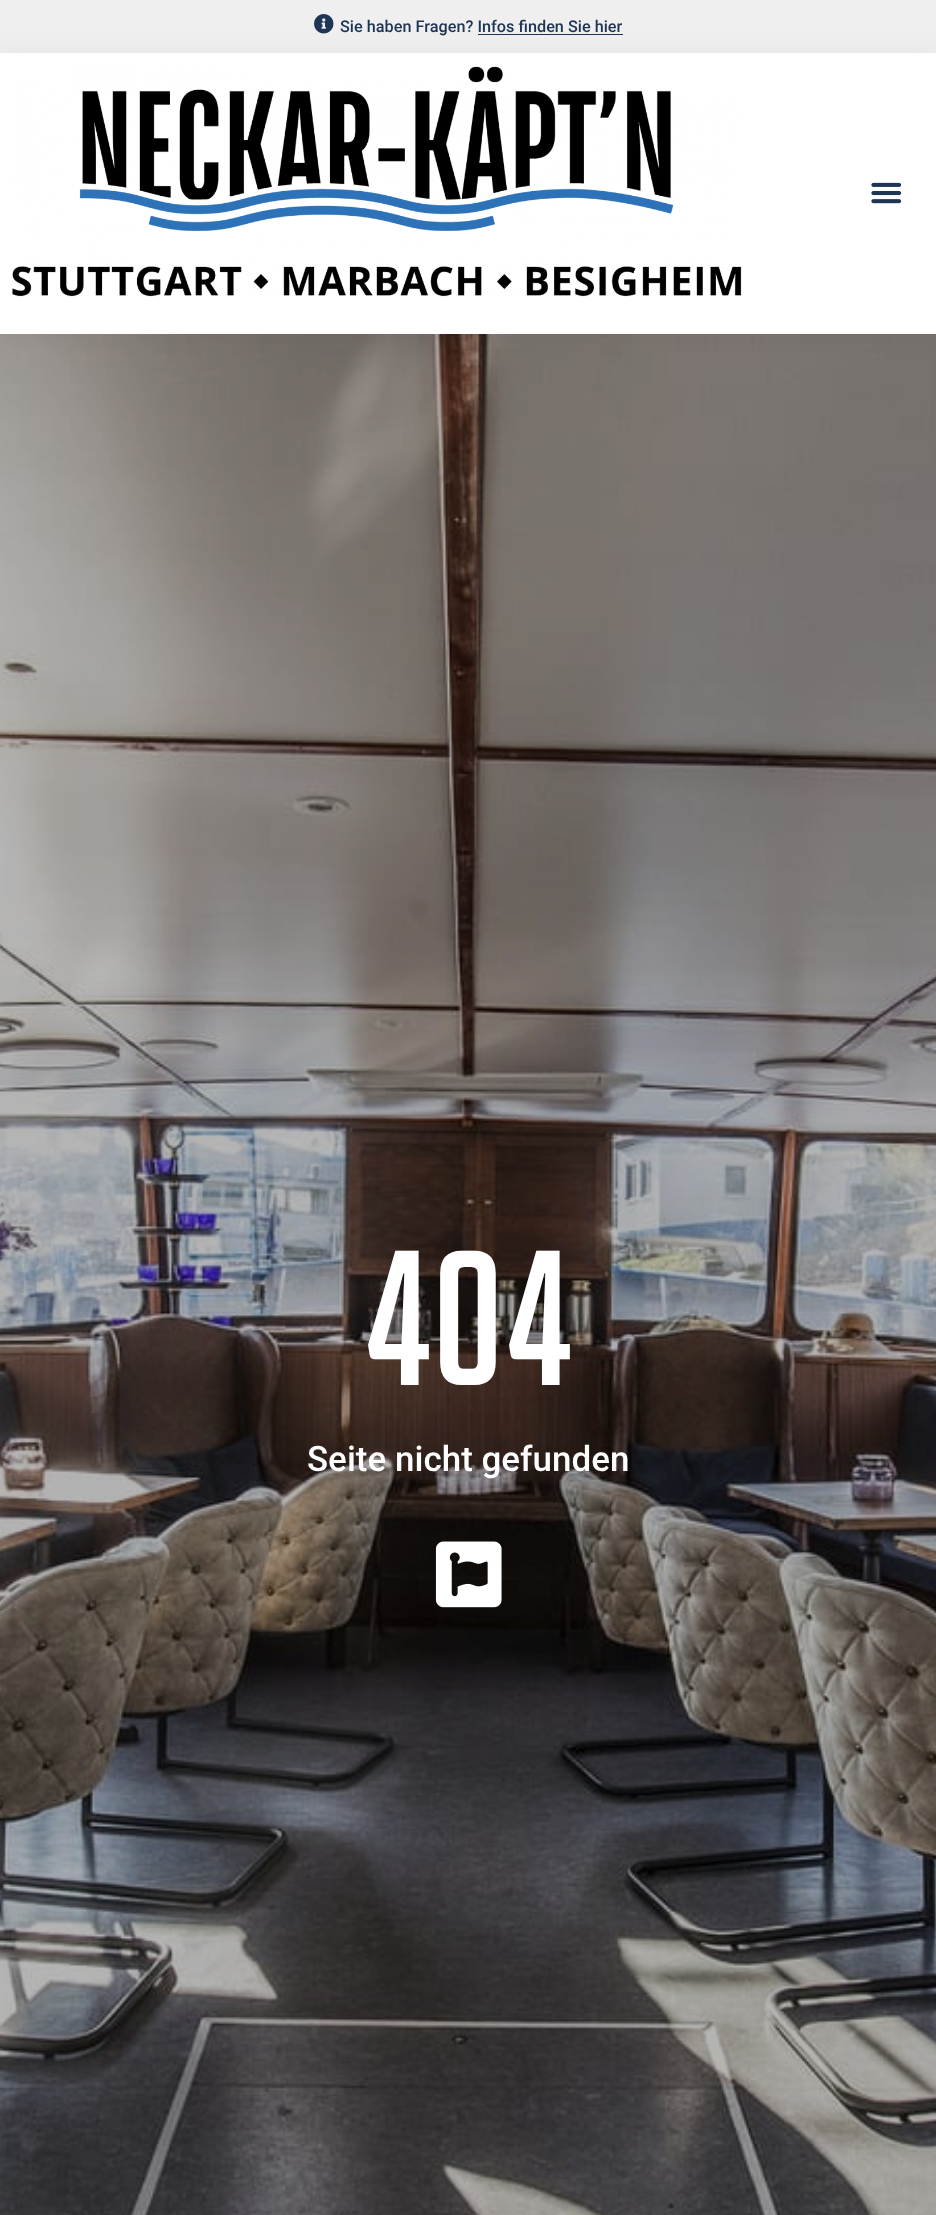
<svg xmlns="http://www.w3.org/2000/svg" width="936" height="2215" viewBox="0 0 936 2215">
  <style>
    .t1 { font: 500 16.25px Roboto; fill: #1e3555; }
    .t2 { font: 187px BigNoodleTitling; fill: #fff; }
    .t3 { font: 500 35px Roboto; fill: #fff; }
  </style>
  <rect width="100%" height="100%" fill="#fff"/>
  <rect x="0" y="0" width="936" height="53" fill="#efefef"/>
  <image x="314" y="14" width="20" height="20" href="images/3.png"/>
  <rect x="478" y="34" width="145" height="1" fill="#1e3555"/>
  <image x="0" y="334" width="936" height="1881" href="images/4.png"/>
  <rect x="0" y="53" width="936" height="281" fill="#0000000d" filter="blur(12.5px)"/>
  <rect x="0" y="53" width="936" height="281" fill="#fff"/>
  <image x="12" y="66" width="730" height="231" href="images/1.png"/>
  <image x="871" y="182" width="31" height="22" href="images/2.png"/>
  <text x="340" y="32" class="t1">Sie haben Fragen? Infos finden Sie hier</text>
  <text x="363" y="1385" class="t2">404</text>
  <text x="307" y="1471" class="t3">Seite nicht gefunden</text>
  <image x="435" y="1541" width="67" height="67" href="images/5.png"/>
</svg>
